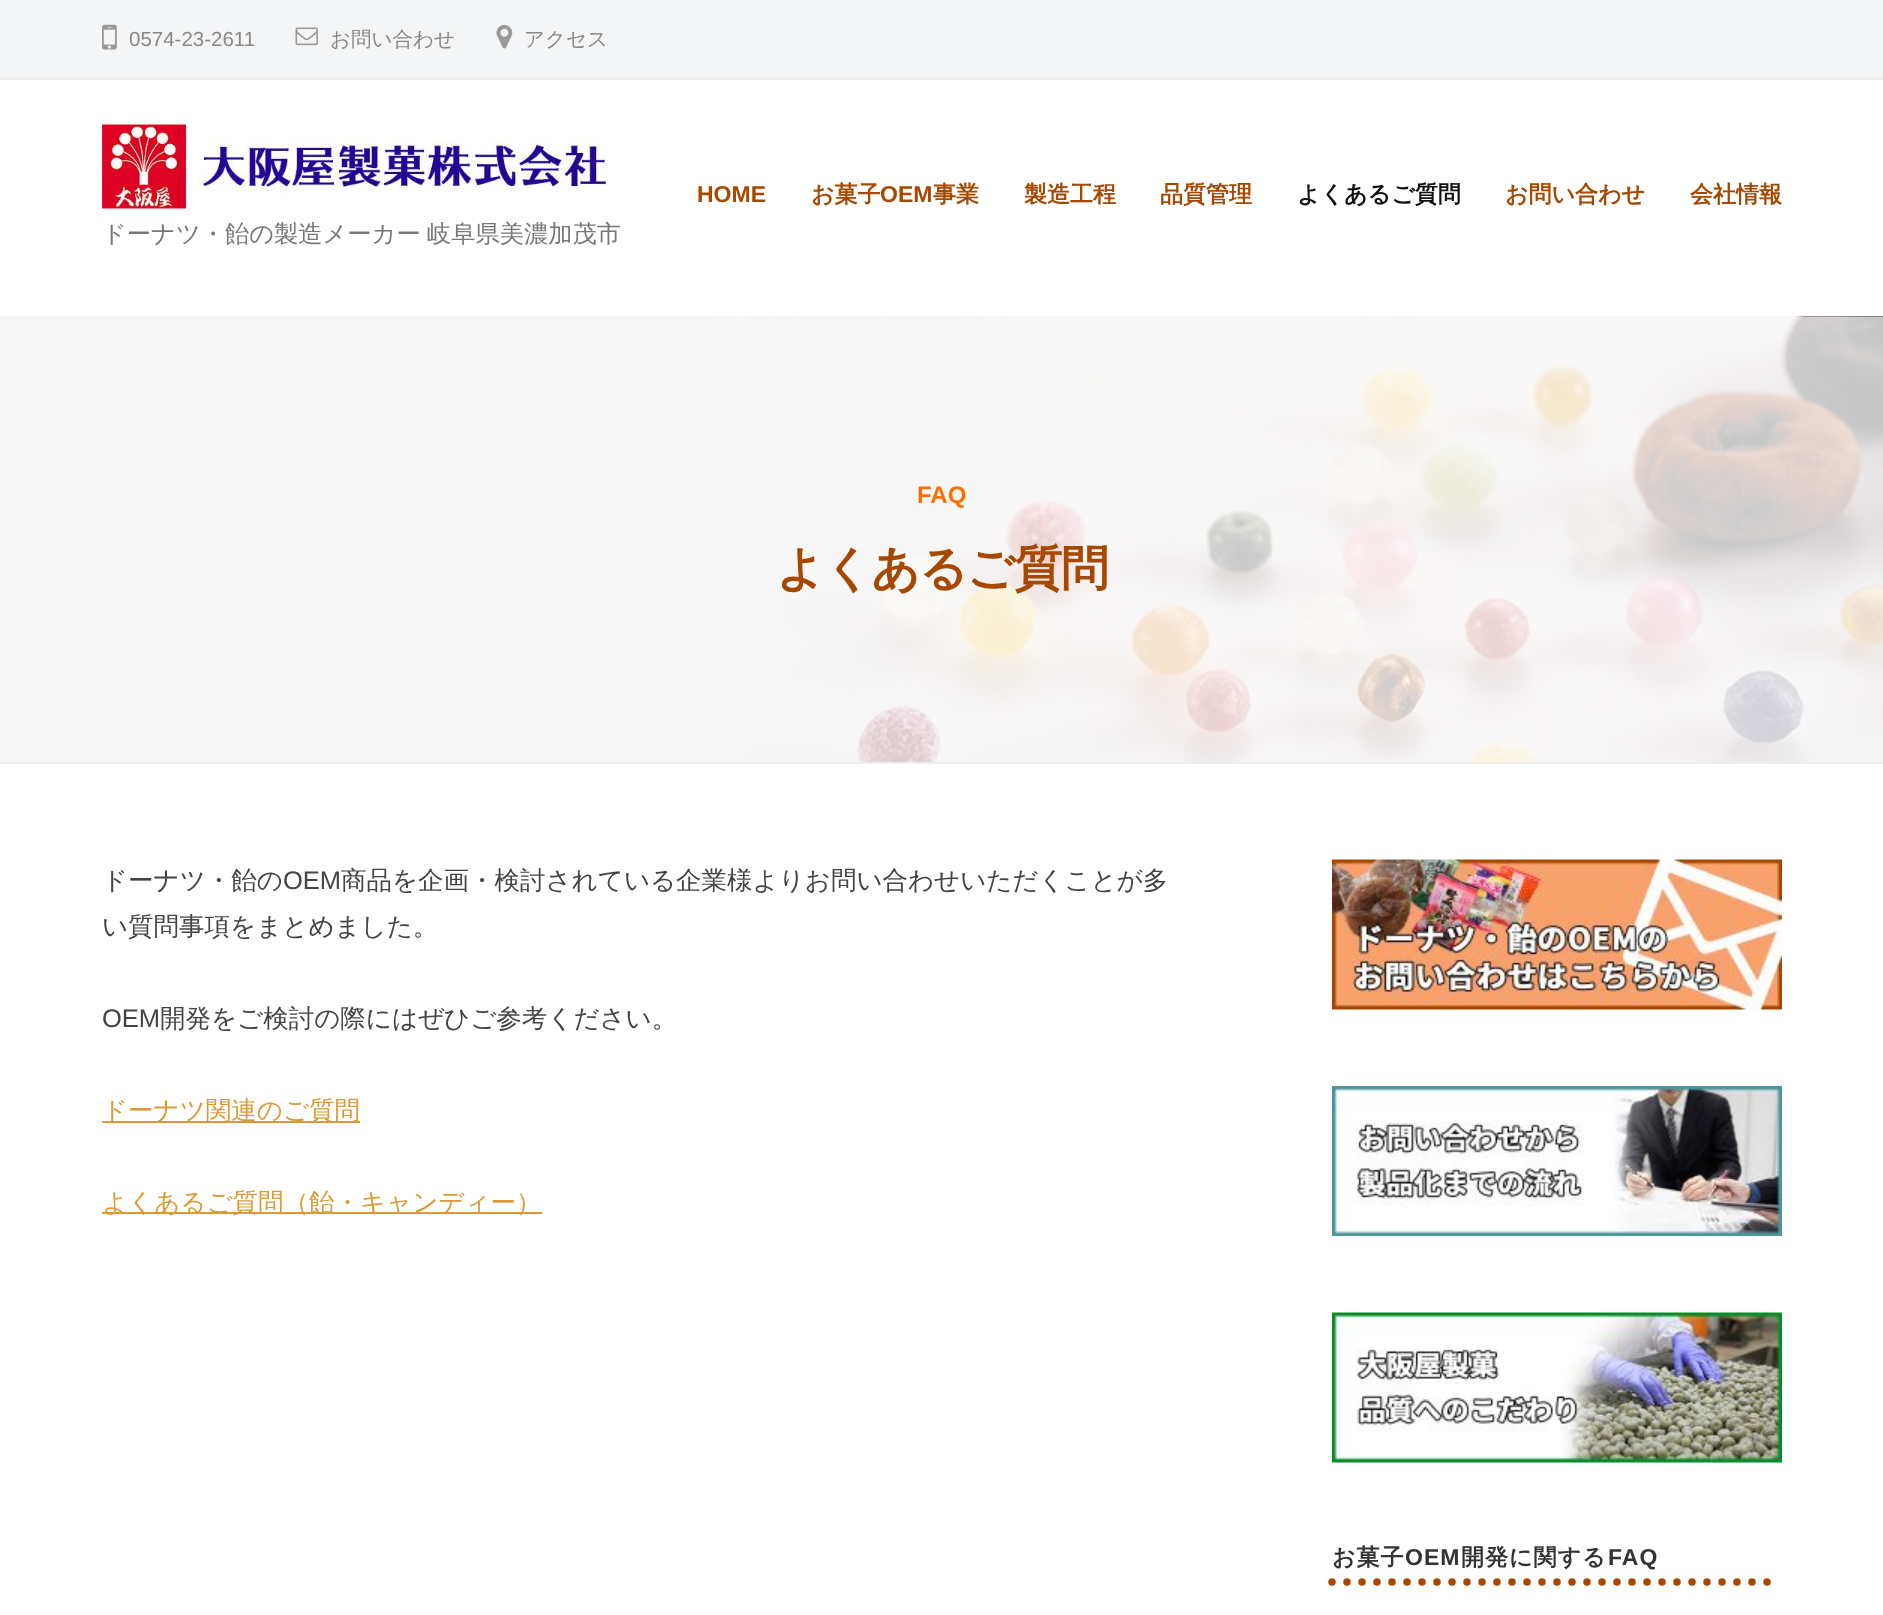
<svg xmlns="http://www.w3.org/2000/svg" width="1883" height="1615" viewBox="0 0 1883 1615">
  <style>
    .t1 { font: 20.5px Liberation Sans; fill: #888; }
    .t2 { font: 500 20.5px WenQuanYi Zen Hei; fill: #888; }
    .t3 { font: bold 23px Liberation Sans; fill: #a64800; }
    .t4 { font: bold 23px WenQuanYi Zen Hei; fill: #a64800; }
    .t5 { font: bold 23px WenQuanYi Zen Hei; fill: #111; }
    .t6 { font: 500 24.25px WenQuanYi Zen Hei; fill: #777; }
    .t7 { font: bold 24px Liberation Sans; fill: #ff6f00; }
    .t8 { font: bold 48px WenQuanYi Zen Hei; letter-spacing: -1.5px; fill: #a64800; }
    .t9 { font: 500 25.5px WenQuanYi Zen Hei; fill: #444; }
    .t10 { font: 25.5px Liberation Sans; fill: #444; }
    .t11 { font: 500 25.5px WenQuanYi Zen Hei; fill: #d93; }
    .t12 { font: bold 23px WenQuanYi Zen Hei; letter-spacing: 1px; fill: #333; }
    .t13 { font: bold 23px Liberation Sans; letter-spacing: 1px; fill: #333; }
  </style>
  <rect width="100%" height="100%" fill="#fff"/>
  <rect x="0" y="762" width="1883" height="2" fill="#eee"/>
  <rect x="0" y="0" width="1883" height="78" fill="#f4f5f6"/>
  <rect x="0" y="78" width="1883" height="2" fill="#eee"/>
  <image x="102" y="24" width="15" height="26" href="images/1.png"/>
  <text x="129" y="46" class="t1">0574-23-2611</text>
  <image x="295" y="27" width="23" height="19" href="images/2.png"/>
  <text x="330" y="46" class="t2">お問い合わせ</text>
  <image x="496" y="24" width="17" height="25" href="images/3.png"/>
  <text x="524" y="46" class="t2">アクセス</text>
  <text x="697" y="202" class="t3">HOME</text>
  <text x="811" y="202" class="t4">お菓子</text>
  <text x="880" y="202" class="t3">OEM</text>
  <text x="933" y="202" class="t4">事業</text>
  <text x="1024" y="202" class="t4">製造工程</text>
  <text x="1160" y="202" class="t4">品質管理</text>
  <text x="1297" y="202" class="t5">よくあるご質問</text>
  <text x="1505" y="202" class="t4">お問い合わせ</text>
  <text x="1690" y="202" class="t4">会社情報</text>
  <image x="102" y="124" width="505" height="85" href="images/4.png"/>
  <text x="102" y="242" class="t6">ドーナツ・飴の製造メーカー</text>
  <text x="427" y="242" class="t6">岐阜県美濃加茂市</text>
  <image x="0" y="316" width="1883" height="446" href="images/5.png"/>
  <text x="917" y="503" class="t7">FAQ</text>
  <text x="776" y="585" class="t8">よくあるご質問</text>
  <text x="102" y="889" class="t9">ドーナツ・飴の</text>
  <text x="283" y="889" class="t10">OEM</text>
  <text x="341" y="889" class="t9">商品を企画・検討されている企業様よりお問い合わせいただくことが多</text>
  <text x="102" y="935" class="t9">い質問事項をまとめました。</text>
  <text x="102" y="1027" class="t10">OEM</text>
  <text x="160" y="1027" class="t9">開発をご検討の際にはぜひご参考ください。</text>
  <rect x="102" y="1121" width="258" height="2" fill="#d93"/>
  <text x="102" y="1119" class="t11">ドーナツ関連のご質問</text>
  <rect x="102" y="1212" width="440" height="2" fill="#d93"/>
  <text x="102" y="1211" class="t11">よくあるご質問（飴・キャンディー）</text>
  <image x="1332" y="859" width="450" height="151" href="images/6.png"/>
  <image x="1332" y="1086" width="450" height="150" href="images/7.png"/>
  <image x="1332" y="1312" width="450" height="151" href="images/8.png"/>
  <path d="M1332 1582H1782" fill="none" stroke="#a64800" stroke-width="7.5" stroke-linecap="round" stroke-dasharray="0 15"/>
  <text x="1332" y="1565" class="t12">お菓子</text>
  <text x="1405" y="1565" class="t13">OEM</text>
  <text x="1461" y="1565" class="t12">開発に関する</text>
  <text x="1608" y="1565" class="t13">FAQ</text>
</svg>
